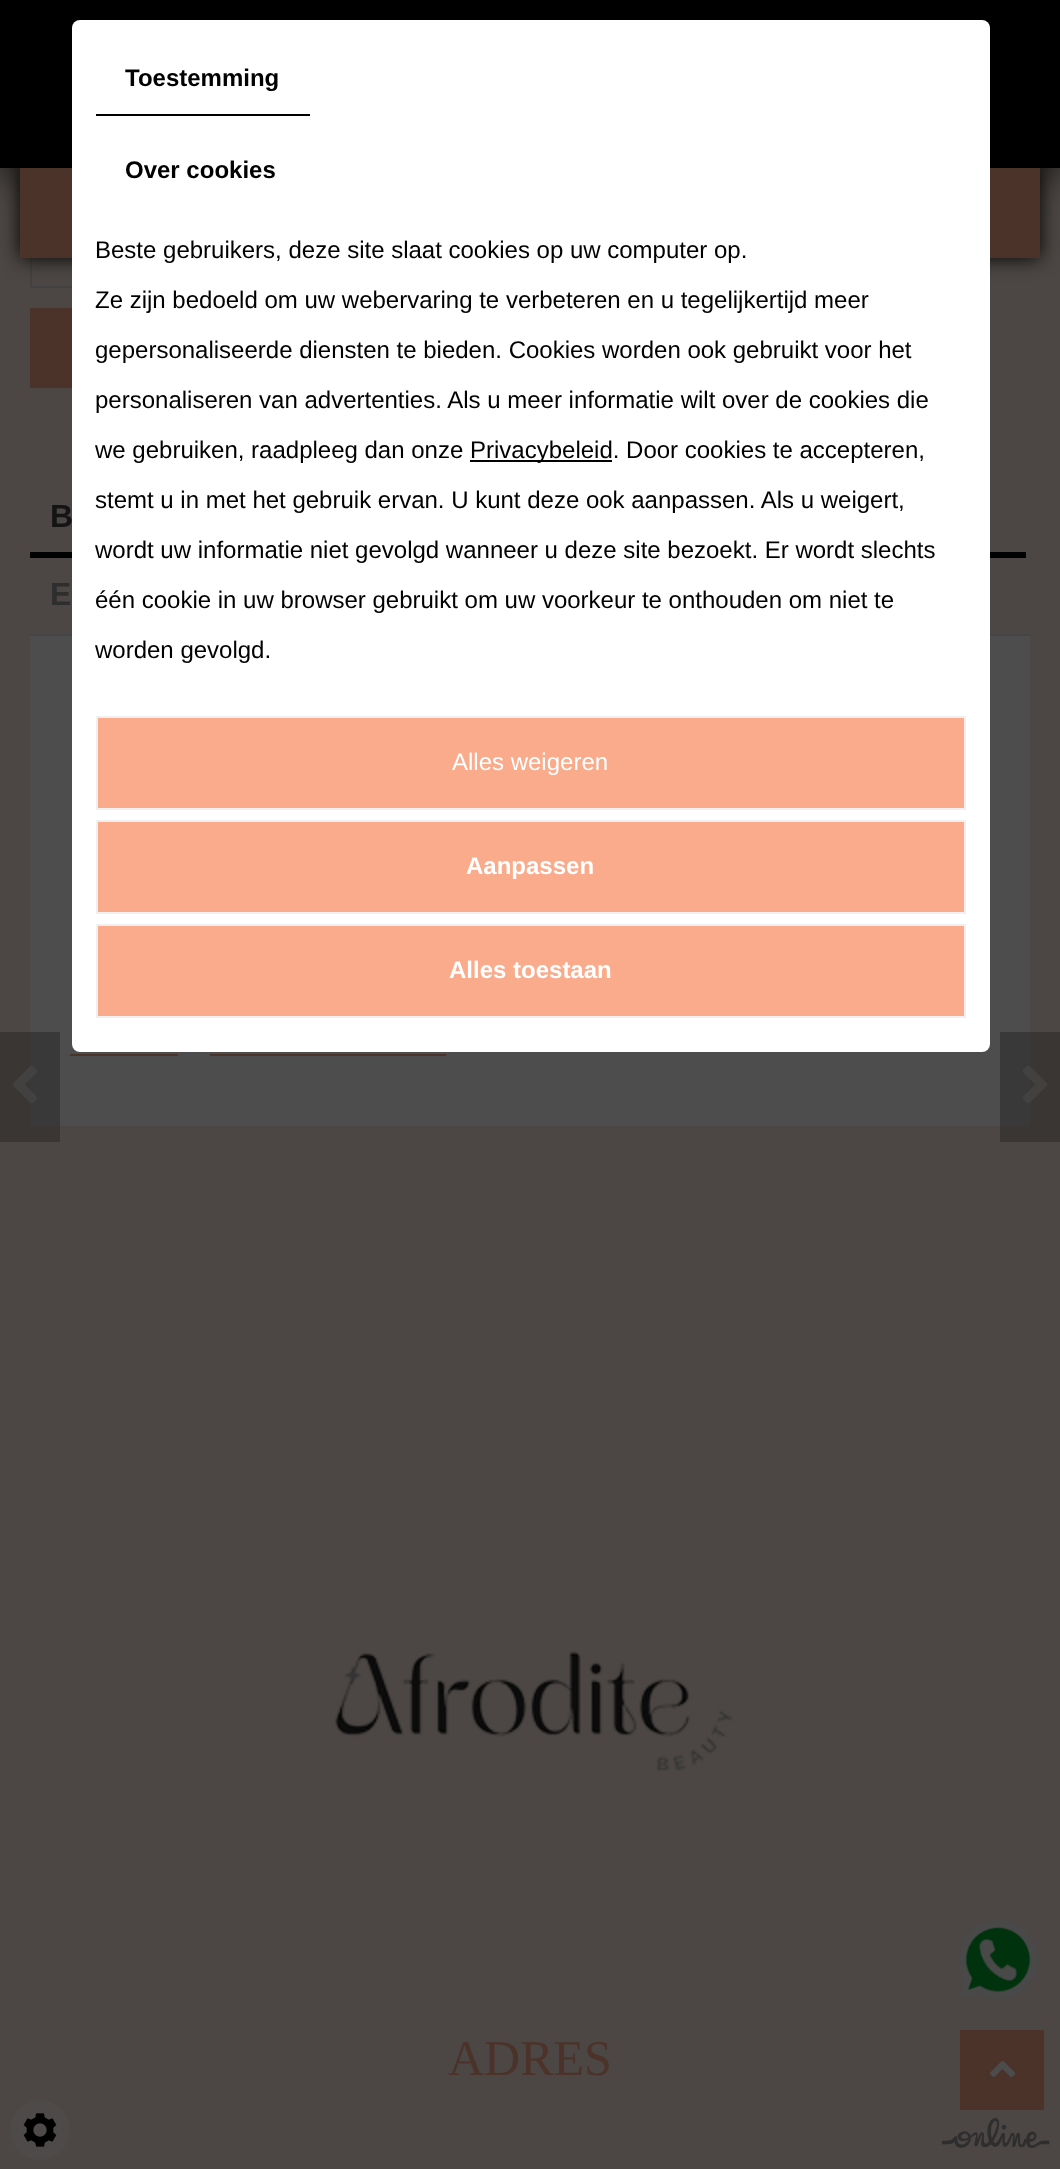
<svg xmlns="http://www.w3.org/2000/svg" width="1060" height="2169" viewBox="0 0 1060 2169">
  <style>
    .t1 { font: bold 24px Liberation Sans; fill: #000; }
    .t2 { font: 24px Liberation Sans; fill: #000; }
    .t3 { font: 24px Liberation Sans; fill: #fff; }
    .t4 { font: bold 24px Liberation Sans; fill: #fff; }
    .t5 { font: bold 32px Liberation Sans; fill: #141414; }
    .t6 { font: bold 32px Liberation Sans; fill: #2e2e2e; }
    .t7 { font: 50px Liberation Serif; fill: #4b332a; }
  </style>
  <rect width="100%" height="100%" fill="#4c4744"/>
  <rect x="0" y="1032" width="60" height="110" fill="#393633"/>
  <rect x="1000" y="1032" width="60" height="110" fill="#393633"/>
  <rect x="0" y="0" width="1060" height="168" fill="#000" filter="blur(20px)"/>
  <rect x="0" y="0" width="1060" height="168" fill="#000"/>
  <rect x="30" y="286" width="42" height="2" fill="#424242"/>
  <rect x="30" y="258" width="2" height="30" fill="#424242"/>
  <rect x="20" y="168" width="1020" height="90" fill="#000" filter="blur(10px)"/>
  <rect x="20" y="168" width="1020" height="90" fill="#4b332a"/>
  <rect x="30" y="552" width="996" height="6" fill="#000"/>
  <rect x="30" y="636" width="1000" height="490" fill="#4d4d4d"/>
  <rect x="30" y="634" width="1000" height="2" fill="#454545"/>
  <rect x="72" y="20" width="918" height="1032" rx="8" fill="#fff"/>
  <rect x="96" y="114" width="214" height="2" fill="#000"/>
  <text x="125" y="86" class="t1">Toestemming</text>
  <text x="125" y="178" class="t1">Over cookies</text>
  <text x="95" y="258" class="t2">Beste gebruikers, deze site slaat cookies op uw computer op.</text>
  <text x="95" y="308" class="t2">Ze zijn bedoeld om uw webervaring te verbeteren en u tegelijkertijd meer</text>
  <text x="95" y="358" class="t2">gepersonaliseerde diensten te bieden. Cookies worden ook gebruikt voor het</text>
  <text x="95" y="408" class="t2">personaliseren van advertenties. Als u meer informatie wilt over de cookies die</text>
  <text x="95" y="458" class="t2">we gebruiken, raadpleeg dan onze</text>
  <rect x="470" y="460" width="142" height="2" fill="#000"/>
  <text x="470" y="458" class="t2">Privacybeleid. Door cookies te accepteren,</text>
  <text x="95" y="508" class="t2">stemt u in met het gebruik ervan. U kunt deze ook aanpassen. Als u weigert,</text>
  <text x="95" y="558" class="t2">wordt uw informatie niet gevolgd wanneer u deze site bezoekt. Er wordt slechts</text>
  <text x="95" y="608" class="t2">één cookie in uw browser gebruikt om uw voorkeur te onthouden om niet te</text>
  <text x="95" y="658" class="t2">worden gevolgd.</text>
  <rect x="97" y="717" width="868" height="92" fill="#f9ab8b" stroke="#f0f0f0" stroke-width="2"/>
  <text x="452" y="770" class="t3">Alles weigeren</text>
  <rect x="97" y="821" width="868" height="92" fill="#f9ab8b" stroke="#f0f0f0" stroke-width="2"/>
  <text x="466" y="874" class="t4">Aanpassen</text>
  <rect x="97" y="925" width="868" height="92" fill="#f9ab8b" stroke="#f0f0f0" stroke-width="2"/>
  <text x="449" y="978" class="t4">Alles toestaan</text>
  <rect x="30" y="308" width="42" height="80" fill="#4b332a"/>
  <rect x="30" y="1032" width="30" height="94" fill="#393939"/>
  <image x="13" y="1065" width="24" height="39" href="images/1.png"/>
  <rect x="1000" y="1032" width="30" height="94" fill="#393939"/>
  <image x="1023" y="1065" width="24" height="39" href="images/2.png"/>
  <text x="50" y="527" class="t5">B</text>
  <text x="50" y="605" class="t6">E</text>
  <rect x="70" y="1054" width="108" height="2" fill="#4b332a"/>
  <rect x="210" y="1054" width="236" height="2" fill="#4b332a"/>
  <image x="335" y="1651" width="398" height="120" href="images/3.png"/>
  <text x="448" y="2075" class="t7">ADRES</text>
  <image x="958" y="1920" width="80" height="80" href="images/4.png"/>
  <rect x="960" y="2030" width="84" height="80" fill="#4b332a"/>
  <image x="990" y="2061" width="25" height="16" href="images/5.png"/>
  <circle cx="40" cy="2130" r="30" fill="#4d4a49"/>
  <image x="23" y="2113" width="34" height="34" href="images/6.png"/>
  <image x="942" y="2117" width="108" height="31" href="images/7.png"/>
</svg>
